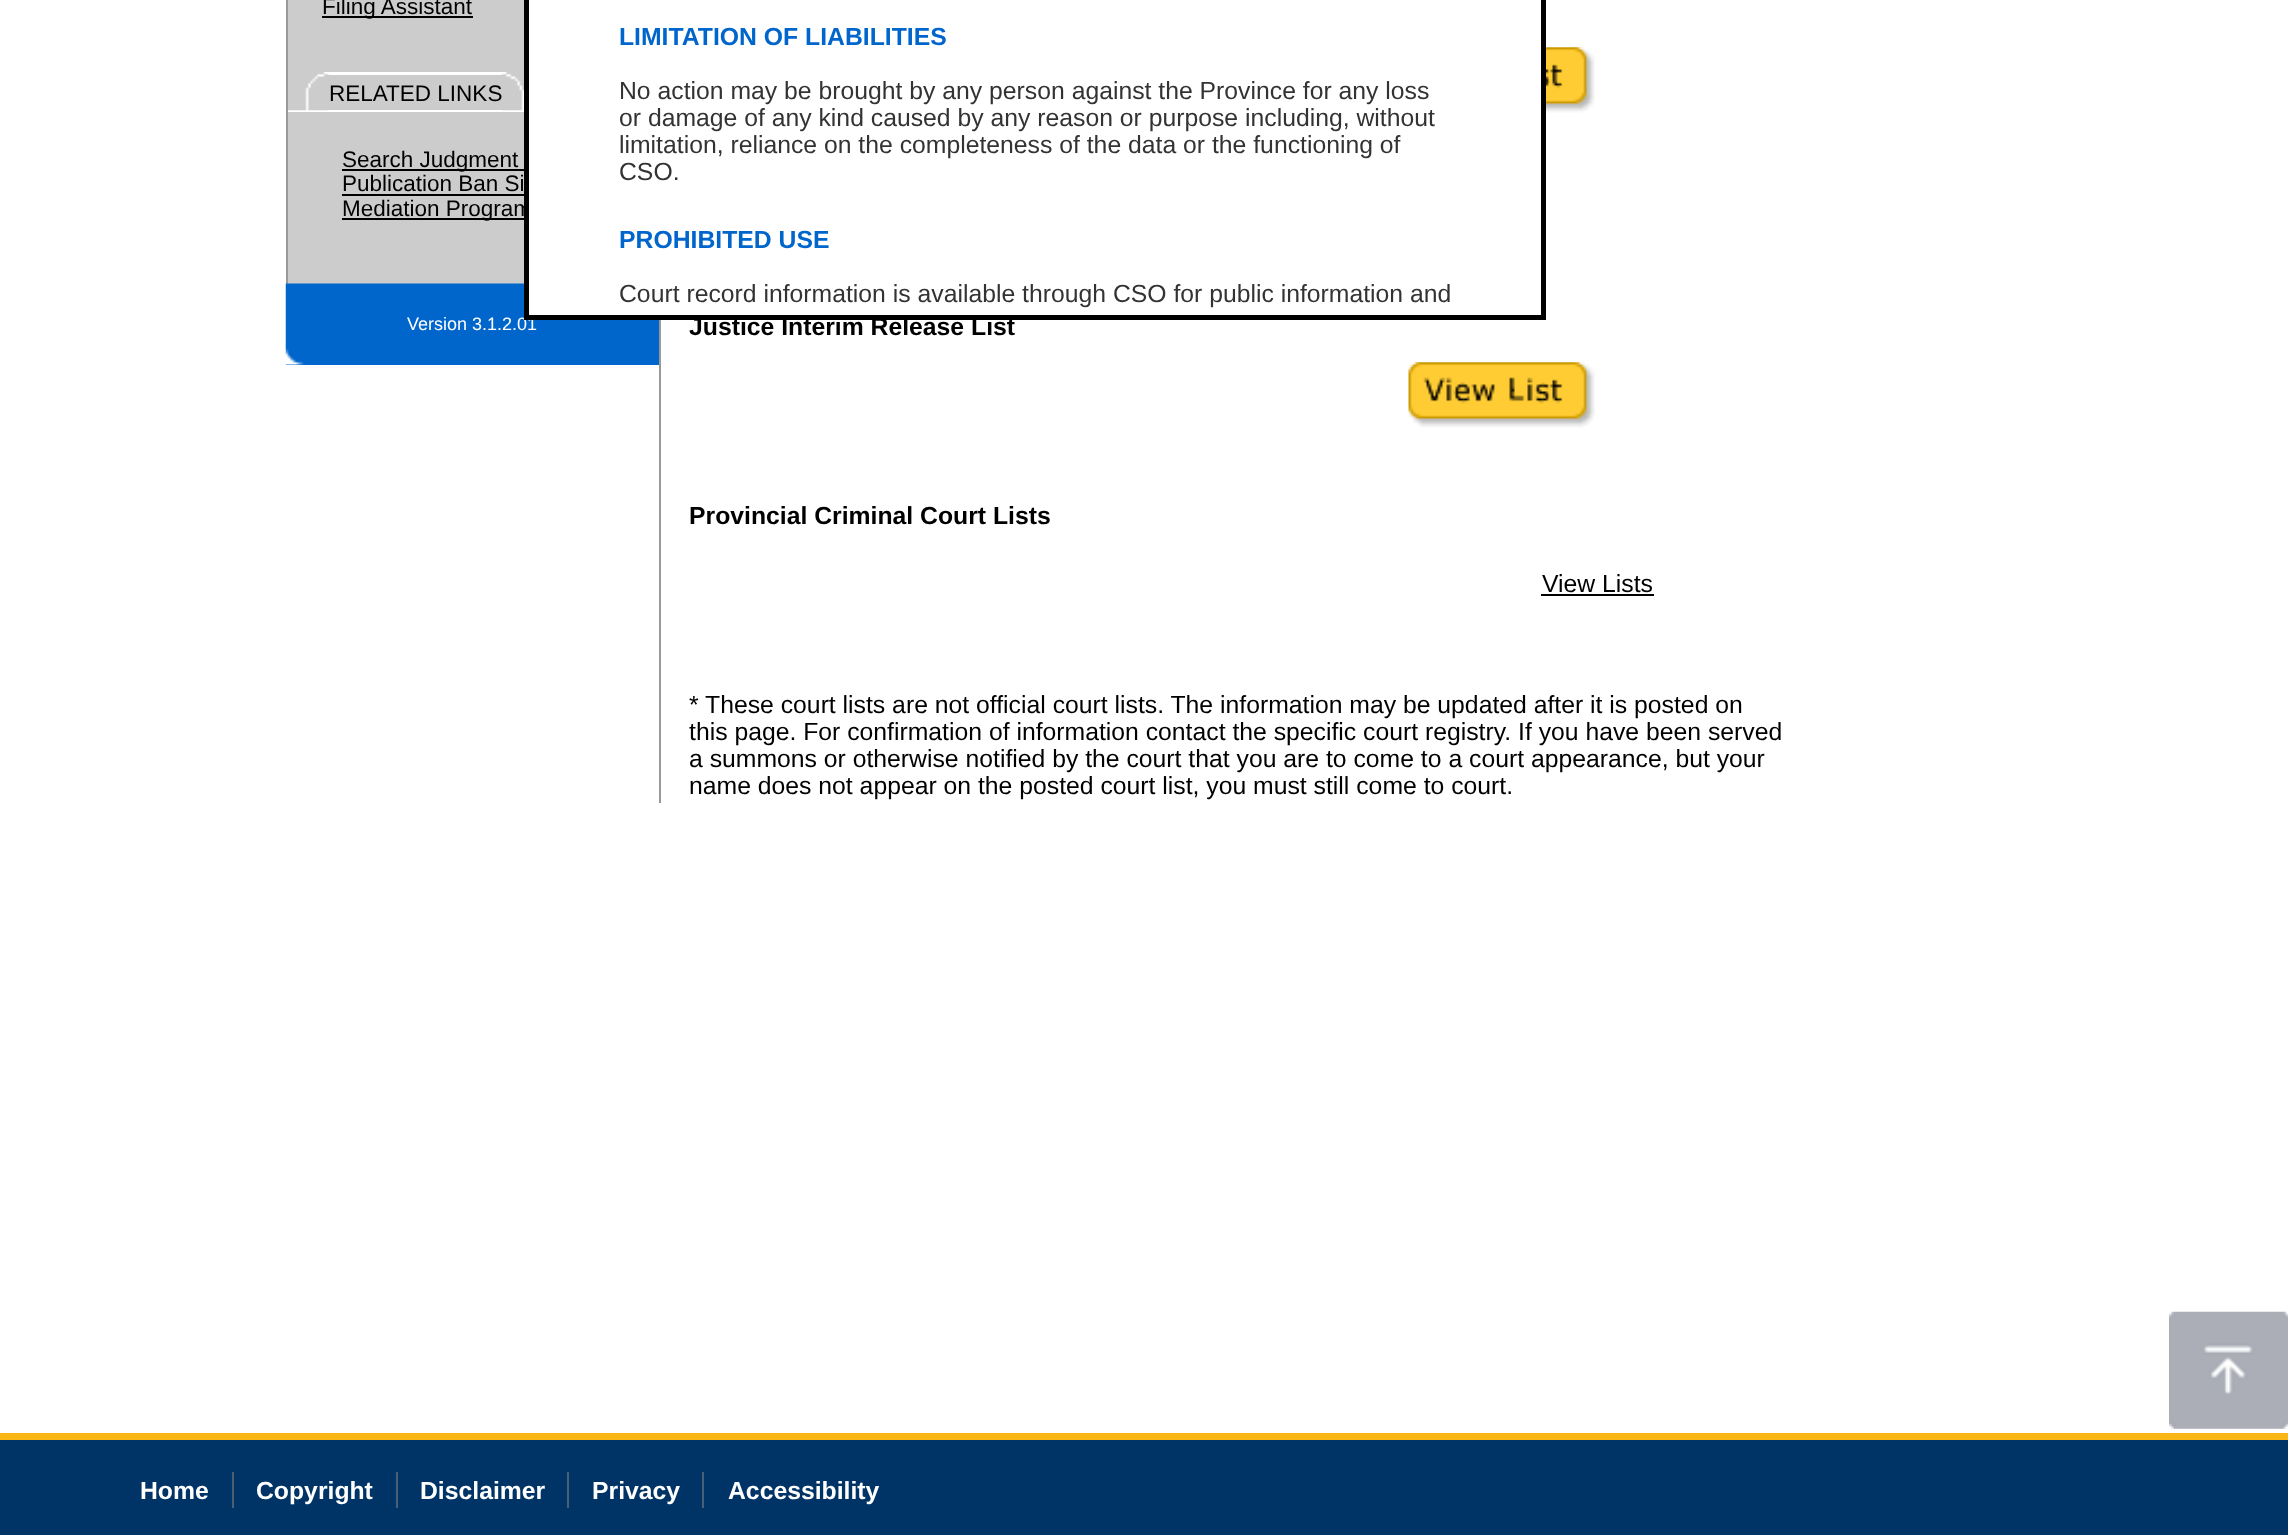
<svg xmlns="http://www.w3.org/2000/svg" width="2288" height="1535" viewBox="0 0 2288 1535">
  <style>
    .t1 { font: 22.5px Liberation Sans; fill: #000; }
    .t2 { font: 18px Liberation Sans; fill: #fff; }
    .t3 { font: bold 24.75px Liberation Sans; fill: #000; }
    .t4 { font: 24.75px Liberation Sans; fill: #000; }
    .t5 { font: bold 24.75px Liberation Sans; fill: #06c; }
    .t6 { font: 24.75px Liberation Sans; fill: #333; }
    .t7 { font: bold 24.75px Liberation Sans; fill: #fff; }
  </style>
  <rect width="100%" height="100%" fill="#fff"/>
  <rect x="288" y="0" width="236" height="284" fill="#ccc"/>
  <rect x="286" y="0" width="2" height="284" fill="#999"/>
  <rect x="322" y="16" width="151" height="2" fill="#000"/>
  <text x="322" y="14" class="t1">Filing Assistant</text>
  <rect x="328" y="72" width="174" height="3" fill="#fff"/>
  <rect x="288" y="110" width="236" height="2" fill="#fff"/>
  <image x="288" y="72" width="41" height="39" href="images/1.png"/>
  <image x="501" y="72" width="23" height="39" href="images/2.png"/>
  <text x="329" y="101" class="t1">RELATED LINKS</text>
  <rect x="342" y="169" width="187" height="2" fill="#000"/>
  <text x="342" y="167" class="t1">Search Judgment</text>
  <text x="342" y="191" class="t1">Publication Ban Si</text>
  <rect x="342" y="194" width="182" height="2" fill="#000"/>
  <rect x="342" y="218" width="189" height="2" fill="#000"/>
  <text x="342" y="216" class="t1">Mediation Program</text>
  <rect x="286" y="320" width="373" height="45" fill="#06c"/>
  <image x="285" y="283" width="370" height="82" href="images/3.png"/>
  <text x="407" y="330" class="t2">Version 3.1.2.01</text>
  <rect x="659" y="320" width="2" height="483" fill="#999"/>
  <image x="1546" y="47" width="49" height="66" href="images/4.png"/>
  <text x="689" y="335" class="t3">Justice Interim Release List</text>
  <image x="1408" y="362" width="187" height="66" href="images/5.png"/>
  <text x="689" y="524" class="t3">Provincial Criminal Court Lists</text>
  <text x="1542" y="592" class="t4">View Lists</text>
  <rect x="1541" y="594" width="113" height="2" fill="#000"/>
  <text x="689" y="713" class="t4">* These court lists are not official court lists. The information may be updated after it is posted on</text>
  <text x="689" y="740" class="t4">this page. For confirmation of information contact the specific court registry. If you have been served</text>
  <text x="689" y="767" class="t4">a summons or otherwise notified by the court that you are to come to a court appearance, but your</text>
  <text x="689" y="794" class="t4">name does not appear on the posted court list, you must still come to court.</text>
  <rect x="529" y="204" width="126" height="111" fill="#fff"/>
  <rect x="526.5" y="-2.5" width="1017" height="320" fill="none" stroke="#000" stroke-width="5"/>
  <text x="619" y="45" class="t5">LIMITATION OF LIABILITIES</text>
  <text x="619" y="99" class="t6">No action may be brought by any person against the Province for any loss</text>
  <text x="619" y="126" class="t6">or damage of any kind caused by any reason or purpose including, without</text>
  <text x="619" y="153" class="t6">limitation, reliance on the completeness of the data or the functioning of</text>
  <text x="619" y="180" class="t6">CSO.</text>
  <text x="619" y="248" class="t5">PROHIBITED USE</text>
  <text x="619" y="302" class="t6">Court record information is available through CSO for public information and</text>
  <image x="2169" y="1311" width="119" height="118" href="images/6.png"/>
  <rect x="0" y="1440" width="2288" height="95" fill="#036"/>
  <rect x="0" y="1433" width="2288" height="7" fill="#f9b614"/>
  <text x="140" y="1499" class="t7">Home</text>
  <rect x="232" y="1472" width="2" height="36" fill="#4b5e73"/>
  <text x="256" y="1499" class="t7">Copyright</text>
  <rect x="396" y="1472" width="2" height="36" fill="#4b5e73"/>
  <text x="420" y="1499" class="t7">Disclaimer</text>
  <rect x="567" y="1472" width="2" height="36" fill="#4b5e73"/>
  <text x="592" y="1499" class="t7">Privacy</text>
  <rect x="702" y="1472" width="2" height="36" fill="#4b5e73"/>
  <text x="728" y="1499" class="t7">Accessibility</text>
</svg>
